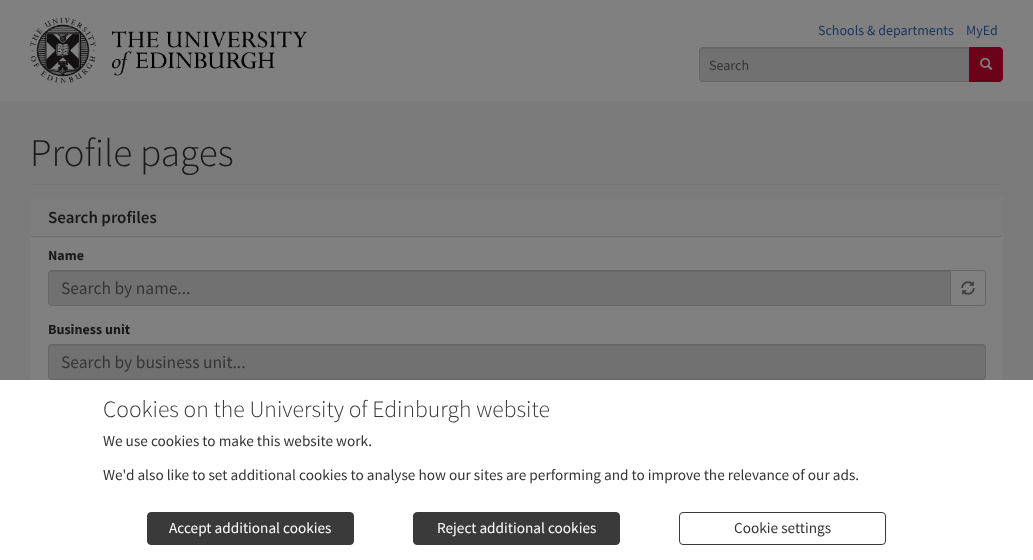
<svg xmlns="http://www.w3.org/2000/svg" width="1033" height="560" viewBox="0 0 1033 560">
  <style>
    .t1 { font: 14px Source Sans Pro; fill: #1a3760; }
    .t2 { font: 14px Source Sans Pro; fill: #353535; }
    .t3 { font: 300 39.25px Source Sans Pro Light; fill: #1a1a1a; }
    .t4 { font: 600 17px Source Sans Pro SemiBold; fill: #1a1a1a; }
    .t5 { font: bold 14px Source Sans Pro; fill: #1a1a1a; }
    .t6 { font: 17.5px Source Sans Pro; fill: #353535; }
    .t7 { font: 300 23.6px Source Sans Pro Light; fill: #353535; }
    .t8 { font: 15.25px Source Sans Pro; fill: #353535; }
    .t9 { font: 15.25px Source Sans Pro; fill: #fff; }
  </style>
  <rect width="100%" height="100%" fill="#7b7b7b"/>
  <rect x="0" y="0" width="1033" height="101" fill="#808080"/>
  <image x="30" y="18" width="277" height="65" href="images/1.png"/>
  <text x="818" y="35" class="t1">Schools &amp; departments</text>
  <text x="966" y="35" class="t1">MyEd</text>
  <path d="M703 47H970V82H703C701 82 699 80 699 78V51C699 49 701 47 703 47Z" fill="#717171"/>
  <path d="M702 49H969V48H702C700 48 700 50 700 52C700 50 701 49 702 49Z" fill="#686868"/>
  <path d="M703 47.5H969.5V81.5H703C701 81.5 699.5 80 699.5 78V51C699.5 49 701 47.5 703 47.5Z" fill="none" stroke="#666"/>
  <text x="709" y="70" class="t2">Search</text>
  <path d="M969.5 47.5H999C1001 47.5 1002.5 49 1002.5 51V78C1002.5 80 1001 81.5 999 81.5H969.5Z" fill="#6b0019" stroke="#6b0019"/>
  <image x="980" y="57" width="13" height="13" href="images/2.png"/>
  <rect x="30" y="184" width="973" height="1" fill="#777"/>
  <text x="30" y="166" class="t3">Profile pages</text>
  <rect x="30" y="236" width="973" height="144" fill="#808080"/>
  <rect x="31" y="198" width="971" height="39" fill="#00000026" filter="blur(0.5px)"/>
  <rect x="30" y="197" width="973" height="39" fill="#7d7d7d"/>
  <text x="48" y="223" class="t4">Search profiles</text>
  <text x="48" y="260" class="t5">Name</text>
  <path d="M52 270H951V306H52C50 306 48 304 48 302V274C48 272 50 270 52 270Z" fill="#717171"/>
  <path d="M52 272H950V271H52C50 271 49 272 49 274C49 273 50 272 52 272Z" fill="#686868"/>
  <path d="M52 270.5H950.5V305.5H52C50 305.5 48.5 304 48.5 302V274C48.5 272 50 270.5 52 270.5Z" fill="none" stroke="#666"/>
  <text x="61" y="294" class="t6">Search by name...</text>
  <path d="M951 270H982.5C984.5 270 986 271.5 986 273.5V302.5C986 304.5 984.5 306 982.5 306H951ZM951 271H982.5C984 271 985 272 985 273.5V302.5C985 304 984 305 982.5 305H951Z" fill="#666" fill-rule="evenodd"/>
  <image x="961" y="281" width="14" height="14" href="images/3.png"/>
  <text x="48" y="334" class="t5">Business unit</text>
  <rect x="48" y="344" width="938" height="36" rx="4" fill="#717171"/>
  <path d="M52 346H982C984 346 985 347 985 348C985 346 984 345 982 345H52C50 345 49 346 49 348C49 347 50 346 52 346Z" fill="#686868"/>
  <rect x="48.5" y="344.5" width="937" height="35" rx="3.5" fill="none" stroke="#666"/>
  <text x="61" y="368" class="t6">Search by business unit...</text>
  <rect x="0" y="380" width="1033" height="180" fill="#fff"/>
  <text x="103" y="417" class="t7">Cookies on the University of Edinburgh website</text>
  <text x="103" y="446" class="t8">We use cookies to make this website work.</text>
  <text x="103" y="480" class="t8">We'd also like to set additional cookies to analyse how our sites are performing and to improve the relevance of our ads.</text>
  <rect x="147.5" y="512.5" width="206" height="32" rx="3.5" fill="#3a3a3a" stroke="#3a3a3a"/>
  <text x="169" y="533" class="t9">Accept additional cookies</text>
  <rect x="413.5" y="512.5" width="206" height="32" rx="3.5" fill="#3a3a3a" stroke="#3a3a3a"/>
  <text x="437" y="533" class="t9">Reject additional cookies</text>
  <rect x="679.5" y="512.5" width="206" height="32" rx="3.5" fill="none" stroke="#3a3a3a"/>
  <text x="734" y="533" class="t8">Cookie settings</text>
</svg>
